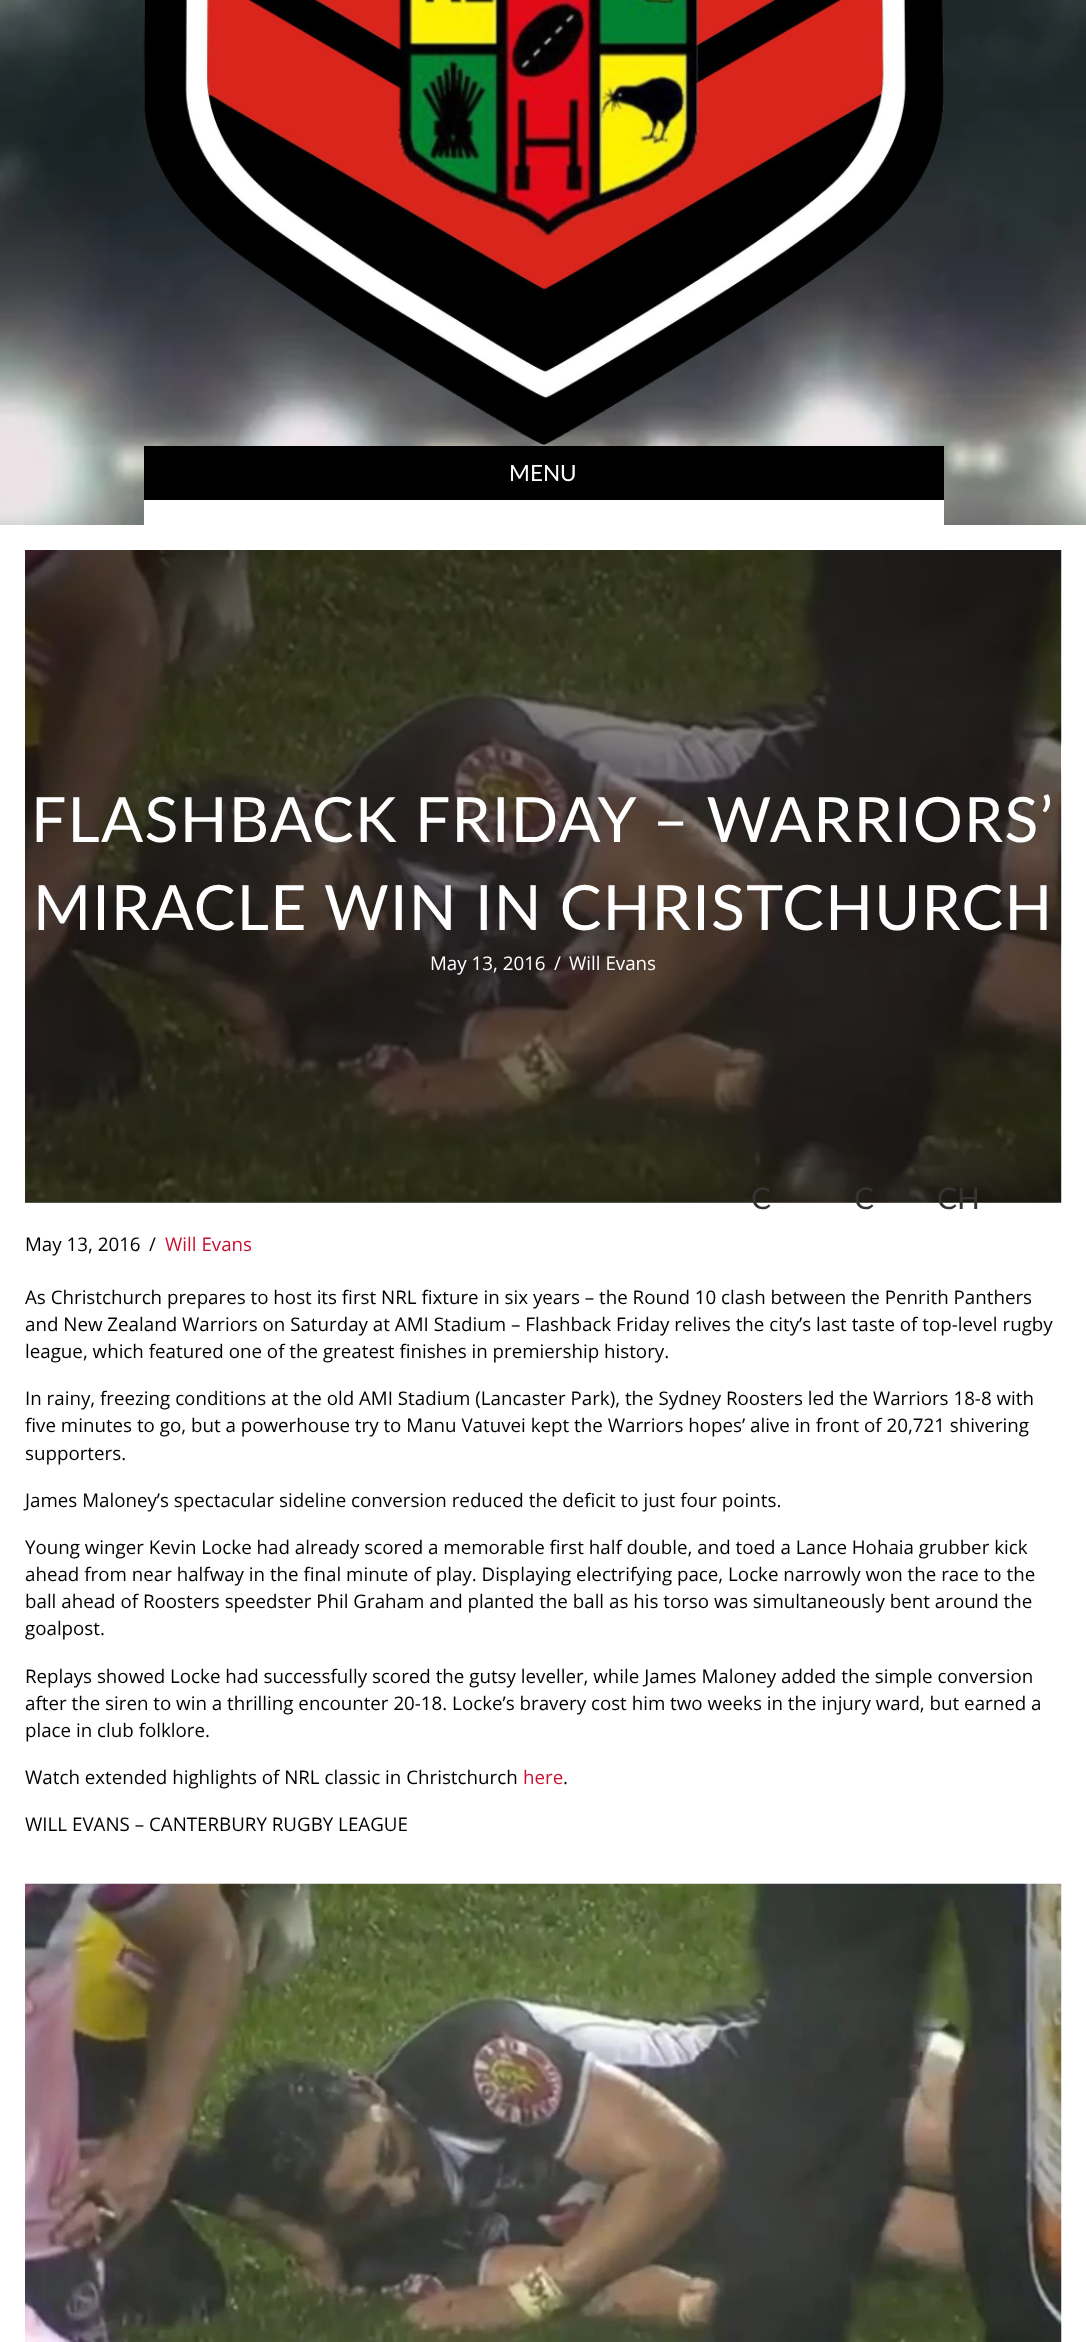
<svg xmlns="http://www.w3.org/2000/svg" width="1086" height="2342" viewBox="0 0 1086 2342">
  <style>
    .t1 { font: 22.5px Lato; fill: #fff; }
    .t2 { font: 62.5px Lato; letter-spacing: 1.25px; fill: #fff; }
    .t3 { font: 18.75px Open Sans; fill: #fff; }
    .t4 { font: 30px Lato; fill: #333; }
    .t5 { font: 18.75px Open Sans; fill: #000; }
    .t6 { font: 18.75px Open Sans; fill: #ca112f; }
  </style>
  <rect width="100%" height="100%" fill="#fff"/>
  <image x="0" y="0" width="1086" height="525" href="images/1.png"/>
  <image x="143" y="0" width="801" height="445" href="images/2.png"/>
  <rect x="144" y="500" width="800" height="25" fill="#fff"/>
  <rect x="144" y="446" width="800" height="54" fill="#000"/>
  <text x="509" y="481" class="t1">MENU</text>
  <image x="25" y="550" width="1037" height="653" href="images/3.png"/>
  <rect x="25" y="550" width="1036" height="653" fill="#0a000080"/>
  <text x="31" y="842" class="t2">FLASHBACK FRIDAY – WARRIORS’</text>
  <text x="33" y="930" class="t2">MIRACLE WIN IN CHRISTCHURCH</text>
  <text x="430" y="970" class="t3">May 13, 2016</text>
  <text x="554" y="970" class="t3">/</text>
  <text x="569" y="970" class="t3">Will Evans</text>
  <text x="751" y="1209" class="t4">C</text>
  <text x="854" y="1209" class="t4">C</text>
  <text x="937" y="1209" class="t4">CH</text>
  <text x="25" y="1251" class="t5">May 13, 2016</text>
  <text x="149" y="1251" class="t5">/</text>
  <text x="165" y="1251" class="t6">Will Evans</text>
  <text x="25" y="1304" class="t5">As Christchurch prepares to host its first NRL fixture in six years – the Round 10 clash between the Penrith Panthers</text>
  <text x="25" y="1331" class="t5">and New Zealand Warriors on Saturday at AMI Stadium – Flashback Friday relives the city’s last taste of top-level rugby</text>
  <text x="25" y="1358" class="t5">league, which featured one of the greatest finishes in premiership history.</text>
  <text x="25" y="1405" class="t5">In rainy, freezing conditions at the old AMI Stadium (Lancaster Park), the Sydney Roosters led the Warriors 18-8 with</text>
  <text x="25" y="1432" class="t5">five minutes to go, but a powerhouse try to Manu Vatuvei kept the Warriors hopes’ alive in front of 20,721 shivering</text>
  <text x="25" y="1460" class="t5">supporters.</text>
  <text x="25" y="1507" class="t5">James Maloney’s spectacular sideline conversion reduced the deficit to just four points.</text>
  <text x="25" y="1554" class="t5">Young winger Kevin Locke had already scored a memorable first half double, and toed a Lance Hohaia grubber kick</text>
  <text x="25" y="1581" class="t5">ahead from near halfway in the final minute of play. Displaying electrifying pace, Locke narrowly won the race to the</text>
  <text x="25" y="1608" class="t5">ball ahead of Roosters speedster Phil Graham and planted the ball as his torso was simultaneously bent around the</text>
  <text x="25" y="1635" class="t5">goalpost.</text>
  <text x="25" y="1683" class="t5">Replays showed Locke had successfully scored the gutsy leveller, while James Maloney added the simple conversion</text>
  <text x="25" y="1710" class="t5">after the siren to win a thrilling encounter 20-18. Locke’s bravery cost him two weeks in the injury ward, but earned a</text>
  <text x="25" y="1737" class="t5">place in club folklore.</text>
  <text x="25" y="1784" class="t5">Watch extended highlights of NRL classic in Christchurch</text>
  <text x="523" y="1784" class="t6">here</text>
  <text x="563" y="1784" class="t5">.</text>
  <text x="25" y="1831" class="t5">WILL EVANS – CANTERBURY RUGBY LEAGUE</text>
  <image x="25" y="1883" width="1037" height="459" href="images/4.png"/>
</svg>
